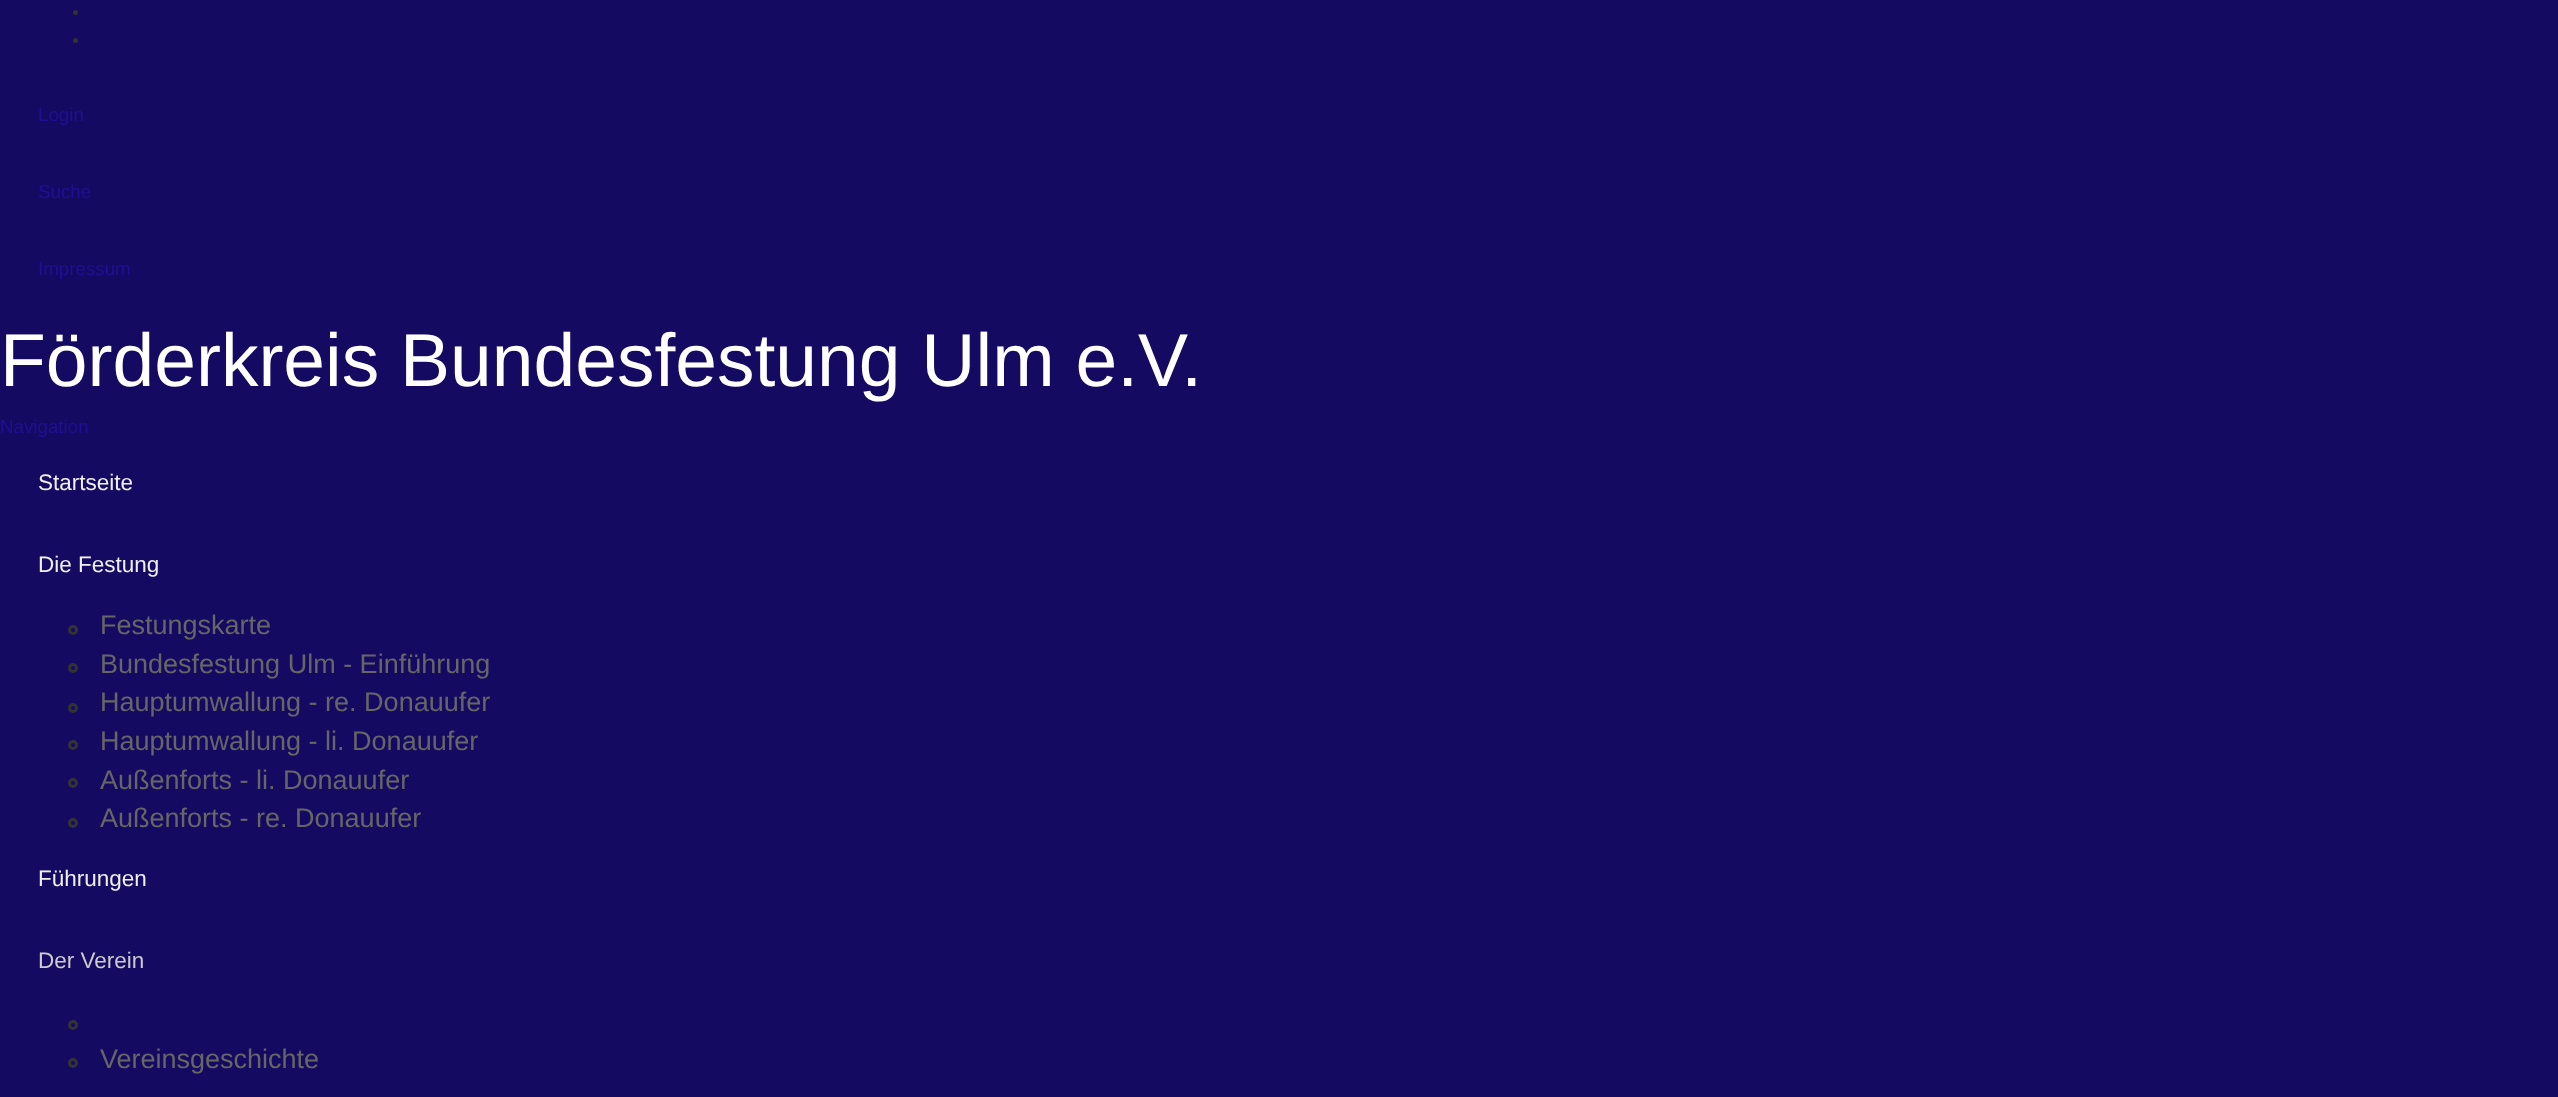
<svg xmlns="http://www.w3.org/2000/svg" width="2558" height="1097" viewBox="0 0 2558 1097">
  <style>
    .t1 { font: 18.75px Liberation Sans; fill: #200f94; }
    .t2 { font: 75px Liberation Sans; fill: #fff; }
    .t3 { font: 22.5px Liberation Sans; fill: #efefef; }
    .t4 { font: 27px Liberation Sans; fill: #666; }
    .t5 { font: 22.5px Liberation Sans; fill: #ccc; }
  </style>
  <rect width="100%" height="100%" fill="#150a61"/>
  <circle cx="75.5" cy="12.5" r="2.5" fill="#333"/>
  <circle cx="75.5" cy="40.5" r="2.5" fill="#333"/>
  <text x="38" y="121" class="t1">Login</text>
  <text x="38" y="198" class="t1">Suche</text>
  <text x="38" y="275" class="t1">Impressum</text>
  <text x="0" y="386" class="t2">Förderkreis Bundesfestung Ulm e.V.</text>
  <text x="0" y="433" class="t1">Navigation</text>
  <text x="38" y="490" class="t3">Startseite</text>
  <text x="38" y="572" class="t3">Die Festung</text>
  <circle cx="73" cy="630" r="3.5" fill="none" stroke="#333" stroke-width="3"/>
  <text x="100" y="634" class="t4">Festungskarte</text>
  <circle cx="73" cy="668" r="3.5" fill="none" stroke="#333" stroke-width="3"/>
  <text x="100" y="673" class="t4">Bundesfestung Ulm - Einführung</text>
  <circle cx="73" cy="708" r="3.5" fill="none" stroke="#333" stroke-width="3"/>
  <text x="100" y="711" class="t4">Hauptumwallung - re. Donauufer</text>
  <circle cx="73" cy="745" r="3.5" fill="none" stroke="#333" stroke-width="3"/>
  <text x="100" y="750" class="t4">Hauptumwallung - li. Donauufer</text>
  <circle cx="73" cy="783" r="3.5" fill="none" stroke="#333" stroke-width="3"/>
  <text x="100" y="789" class="t4">Außenforts - li. Donauufer</text>
  <circle cx="73" cy="823" r="3.5" fill="none" stroke="#333" stroke-width="3"/>
  <text x="100" y="827" class="t4">Außenforts - re. Donauufer</text>
  <text x="38" y="886" class="t3">Führungen</text>
  <text x="38" y="968" class="t5">Der Verein</text>
  <circle cx="73" cy="1025" r="3.5" fill="none" stroke="#333" stroke-width="3"/>
  <circle cx="73" cy="1063" r="3.5" fill="none" stroke="#333" stroke-width="3"/>
  <text x="100" y="1068" class="t4">Vereinsgeschichte</text>
</svg>
